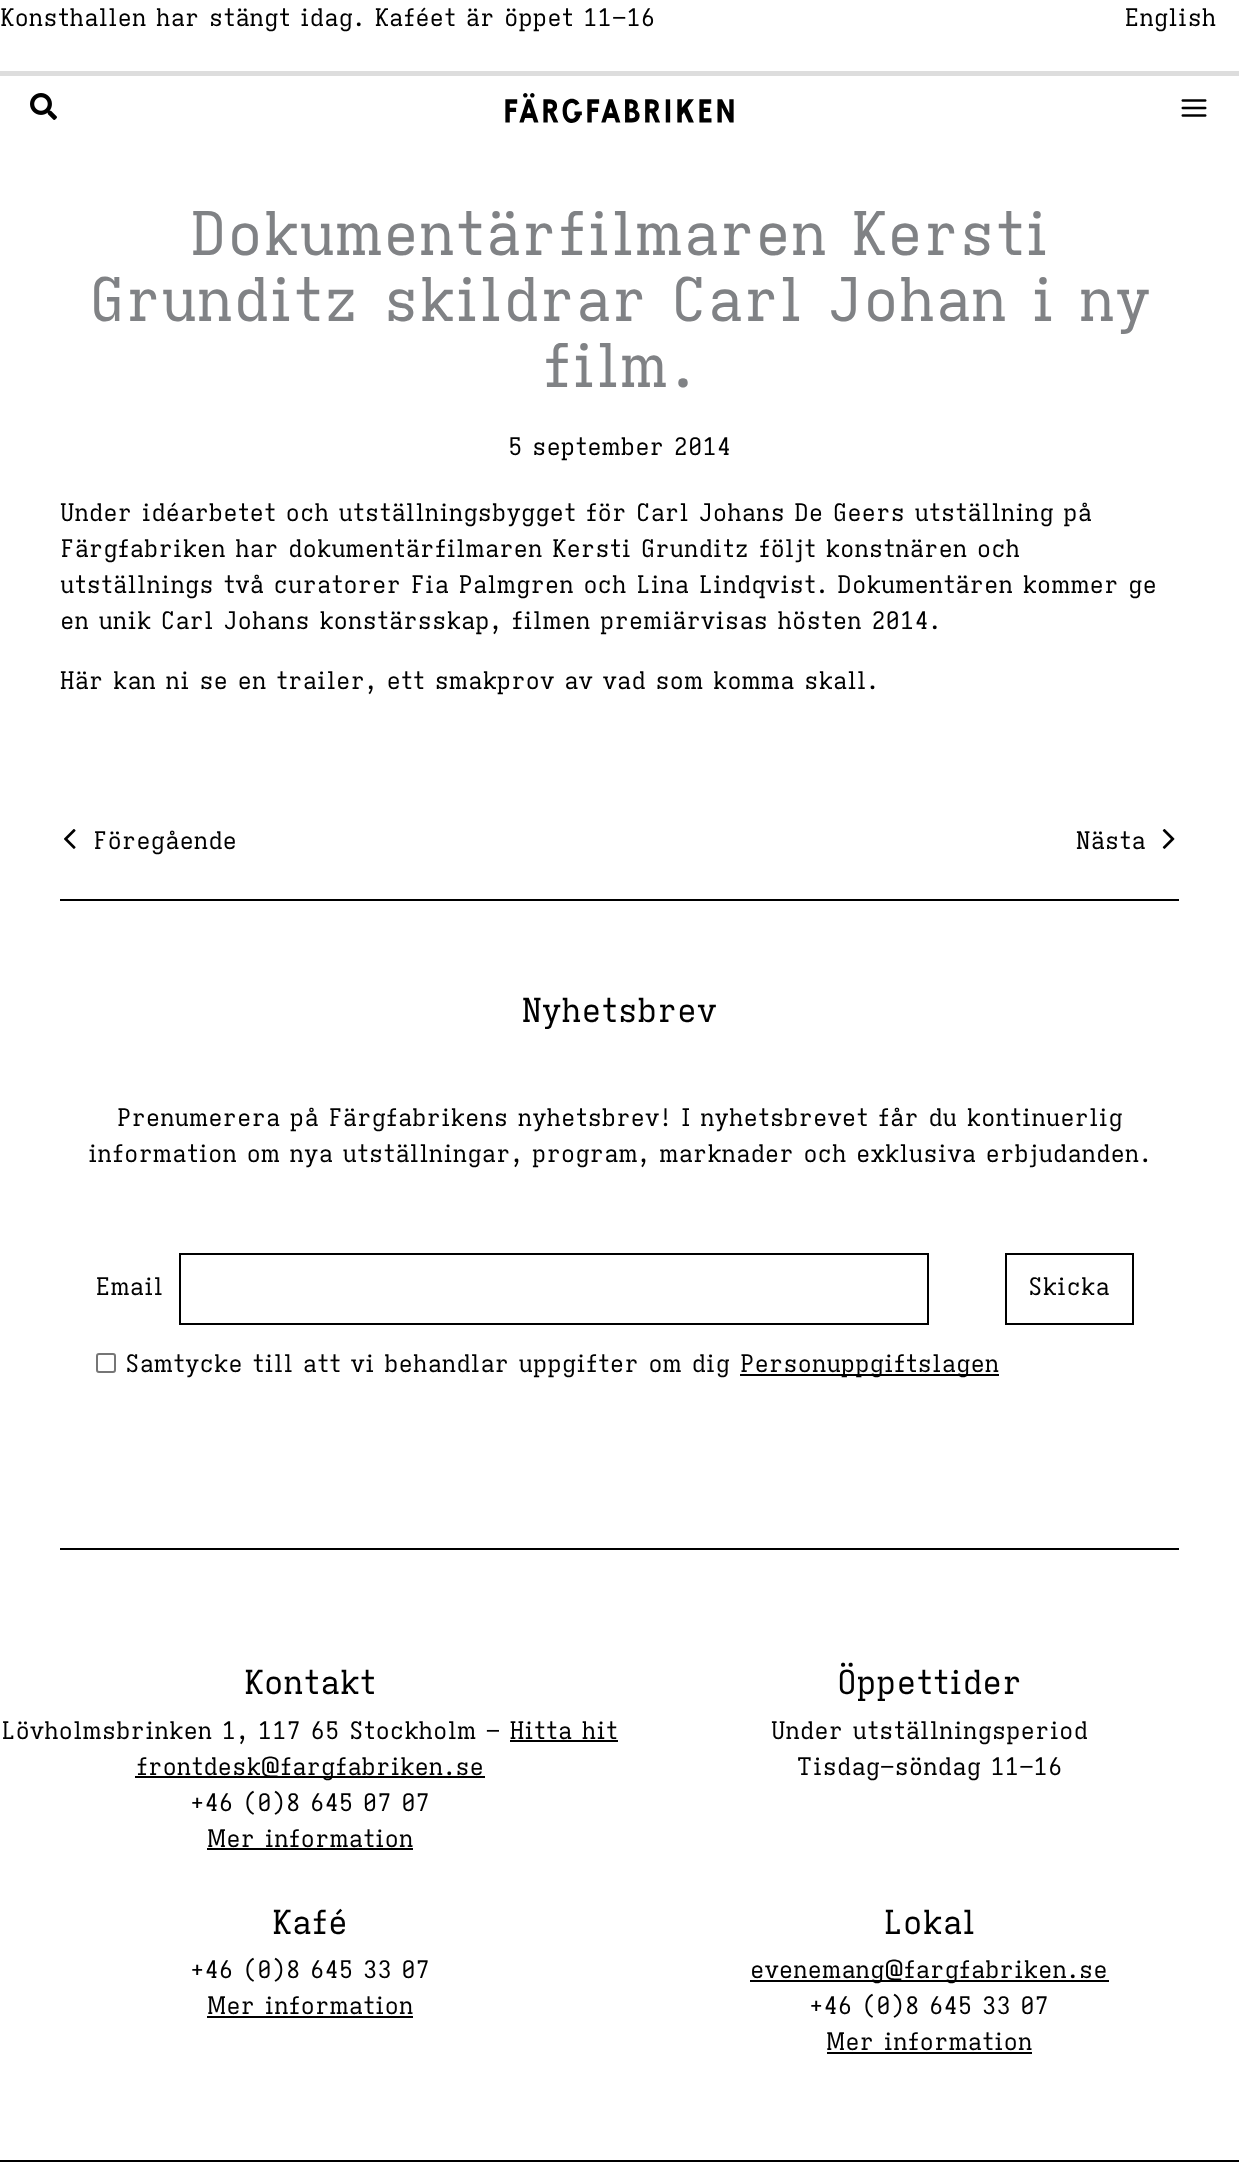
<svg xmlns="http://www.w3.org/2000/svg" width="1239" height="2167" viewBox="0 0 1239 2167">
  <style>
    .t1 { font: 24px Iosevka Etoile; fill: #000; }
    .t2 { font: 60px Iosevka Etoile; fill: #808285; }
    .t3 { font: 33px Iosevka Etoile; fill: #000; }
  </style>
  <rect width="100%" height="100%" fill="#fff"/>
  <rect x="0" y="71" width="1239" height="5" fill="#ddd"/>
  <text x="0" y="26" class="t1">Konsthallen har stängt idag. Kaféet är öppet 11–16</text>
  <text x="1125" y="26" class="t1">English</text>
  <image x="30" y="93" width="27" height="27" href="images/1.png"/>
  <image x="505" y="93" width="229" height="30" href="images/2.png"/>
  <image x="1181" y="99" width="26" height="18" href="images/3.png"/>
  <text x="191" y="255" class="t2">Dokumentärfilmaren Kersti</text>
  <text x="89" y="321" class="t2">Grunditz skildrar Carl Johan i ny</text>
  <text x="542" y="387" class="t2">film.</text>
  <text x="508" y="455" class="t1">5 september 2014</text>
  <text x="60" y="521" class="t1">Under idéarbetet och utställningsbygget för Carl Johans De Geers utställning på</text>
  <text x="60" y="557" class="t1">Färgfabriken har dokumentärfilmaren Kersti Grunditz följt konstnären och</text>
  <text x="60" y="593" class="t1">utställnings två curatorer Fia Palmgren och Lina Lindqvist. Dokumentären kommer ge</text>
  <text x="60" y="629" class="t1">en unik Carl Johans konstärsskap, filmen premiärvisas hösten 2014.</text>
  <text x="60" y="689" class="t1">Här kan ni se en trailer, ett smakprov av vad som komma skall.</text>
  <image x="64" y="829" width="12" height="20" href="images/4.png"/>
  <text x="93" y="849" class="t1">Föregående</text>
  <text x="1076" y="849" class="t1">Nästa</text>
  <image x="1162" y="829" width="13" height="20" href="images/5.png"/>
  <rect x="60" y="899" width="1119" height="2" fill="#000"/>
  <rect x="60" y="1548" width="1119" height="2" fill="#000"/>
  <text x="522" y="1022" class="t3">Nyhetsbrev</text>
  <text x="117" y="1126" class="t1">Prenumerera på Färgfabrikens nyhetsbrev! I nyhetsbrevet får du kontinuerlig</text>
  <text x="88" y="1162" class="t1">information om nya utställningar, program, marknader och exklusiva erbjudanden.</text>
  <text x="96" y="1295" class="t1">Email</text>
  <rect x="180" y="1254" width="748" height="70" fill="none" stroke="#000" stroke-width="2"/>
  <rect x="97" y="1354" width="18" height="18" rx="2" fill="none" stroke="#767676" stroke-width="2"/>
  <text x="125" y="1372" class="t1">Samtycke till att vi behandlar uppgifter om dig</text>
  <rect x="740" y="1374" width="259" height="2" fill="#000"/>
  <text x="740" y="1372" class="t1">Personuppgiftslagen</text>
  <rect x="1006" y="1254" width="127" height="70" fill="none" stroke="#000" stroke-width="2"/>
  <text x="1028" y="1295" class="t1">Skicka</text>
  <rect x="0" y="2160" width="1239" height="2" fill="#000"/>
  <text x="244" y="1694" class="t3">Kontakt</text>
  <text x="1" y="1739" class="t1">Lövholmsbrinken 1, 117 65 Stockholm – Hitta hit</text>
  <rect x="510" y="1740" width="108" height="2" fill="#000"/>
  <rect x="135" y="1776" width="350" height="2" fill="#000"/>
  <text x="136" y="1775" class="t1">frontdesk@fargfabriken.se</text>
  <text x="190" y="1811" class="t1">+46 (0)8 645 07 07</text>
  <text x="207" y="1847" class="t1">Mer information</text>
  <rect x="207" y="1848" width="206" height="2" fill="#000"/>
  <text x="837" y="1694" class="t3">Öppettider</text>
  <text x="771" y="1739" class="t1">Under utställningsperiod</text>
  <text x="796" y="1775" class="t1">Tisdag–söndag 11–16</text>
  <text x="272" y="1934" class="t3">Kafé</text>
  <text x="190" y="1978" class="t1">+46 (0)8 645 33 07</text>
  <text x="207" y="2014" class="t1">Mer information</text>
  <rect x="207" y="2016" width="206" height="2" fill="#000"/>
  <text x="883" y="1934" class="t3">Lokal</text>
  <rect x="750" y="1980" width="359" height="2" fill="#000"/>
  <text x="750" y="1978" class="t1">evenemang@fargfabriken.se</text>
  <text x="809" y="2014" class="t1">+46 (0)8 645 33 07</text>
  <text x="826" y="2050" class="t1">Mer information</text>
  <rect x="827" y="2052" width="205" height="2" fill="#000"/>
</svg>
